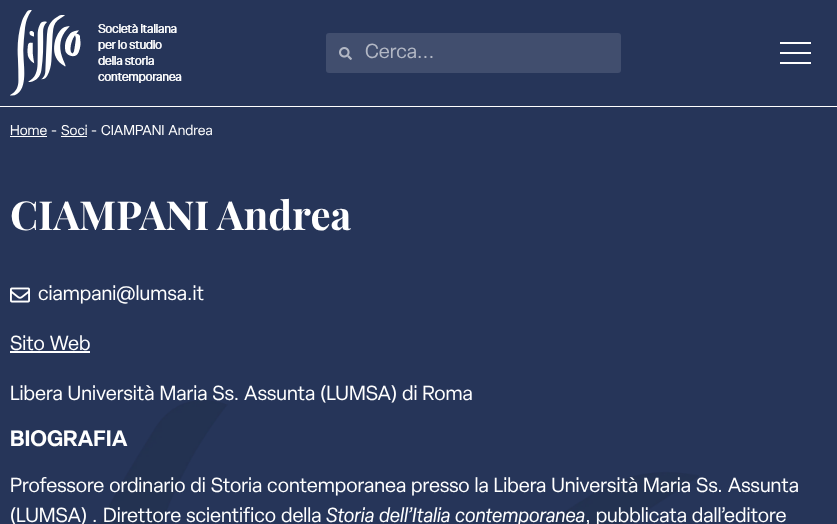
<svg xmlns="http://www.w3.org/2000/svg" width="837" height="524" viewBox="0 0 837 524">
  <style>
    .t1 { font: 20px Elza; fill: #b3b8c5; }
    .t2 { font: 14px Elza; fill: #fff; }
    .t3 { font: bold 40px Playfair Display; fill: #fff; }
    .t4 { font: 20px Elza; fill: #fff; }
    .t5 { font: 600 22px Elza; fill: #fff; }
    .t6 { font: italic 20px Elza; fill: #fff; }
  </style>
  <rect width="100%" height="100%" fill="#263559"/>
  <image x="100" y="400" width="599" height="124" href="images/1.png"/>
  <rect x="0" y="106" width="837" height="1" fill="#fff"/>
  <image x="10" y="10" width="172" height="86" href="images/2.png"/>
  <rect x="326" y="33" width="295" height="40" rx="3" fill="#414e6e"/>
  <image x="339" y="47" width="13" height="13" href="images/3.png"/>
  <text x="365" y="58" class="t1">Cerca...</text>
  <rect x="780" y="52" width="31" height="2" fill="#fff"/>
  <rect x="780" y="42" width="31" height="2" fill="#fff"/>
  <rect x="780" y="62" width="31" height="2" fill="#fff"/>
  <text x="10" y="135" class="t2">Home</text>
  <rect x="10" y="136" width="37" height="1" fill="#fff"/>
  <text x="51" y="135" class="t2">-</text>
  <text x="61" y="135" class="t2">Soci</text>
  <rect x="61" y="136" width="26" height="1" fill="#fff"/>
  <text x="91" y="135" class="t2">-</text>
  <text x="101" y="135" word-spacing="1" class="t2">CIAMPANI Andrea</text>
  <text x="10" y="230" class="t3">CIAMPANI Andrea</text>
  <image x="10" y="287" width="20" height="16" href="images/4.png"/>
  <text x="38" y="300" class="t4">ciampani@lumsa.it</text>
  <text x="10" y="350" word-spacing="1" class="t4">Sito Web</text>
  <rect x="10" y="351" width="80" height="2" fill="#fff"/>
  <text x="10" y="400" word-spacing="1" class="t4">Libera Università Maria Ss. Assunta (LUMSA) di Roma</text>
  <text x="10" y="446" class="t5">BIOGRAFIA</text>
  <text x="10" y="492" word-spacing="1" class="t4">Professore ordinario di Storia contemporanea presso la Libera Università Maria Ss. Assunta</text>
  <text x="10" y="522" word-spacing="1" class="t4">(LUMSA) .</text>
  <text x="103" y="522" word-spacing="1" class="t4">Direttore scientifico della</text>
  <text x="326" y="522" word-spacing="1" class="t6">Storia dell’Italia contemporanea</text>
  <text x="585" y="522" word-spacing="1" class="t4">, pubblicata dall’editore</text>
</svg>
